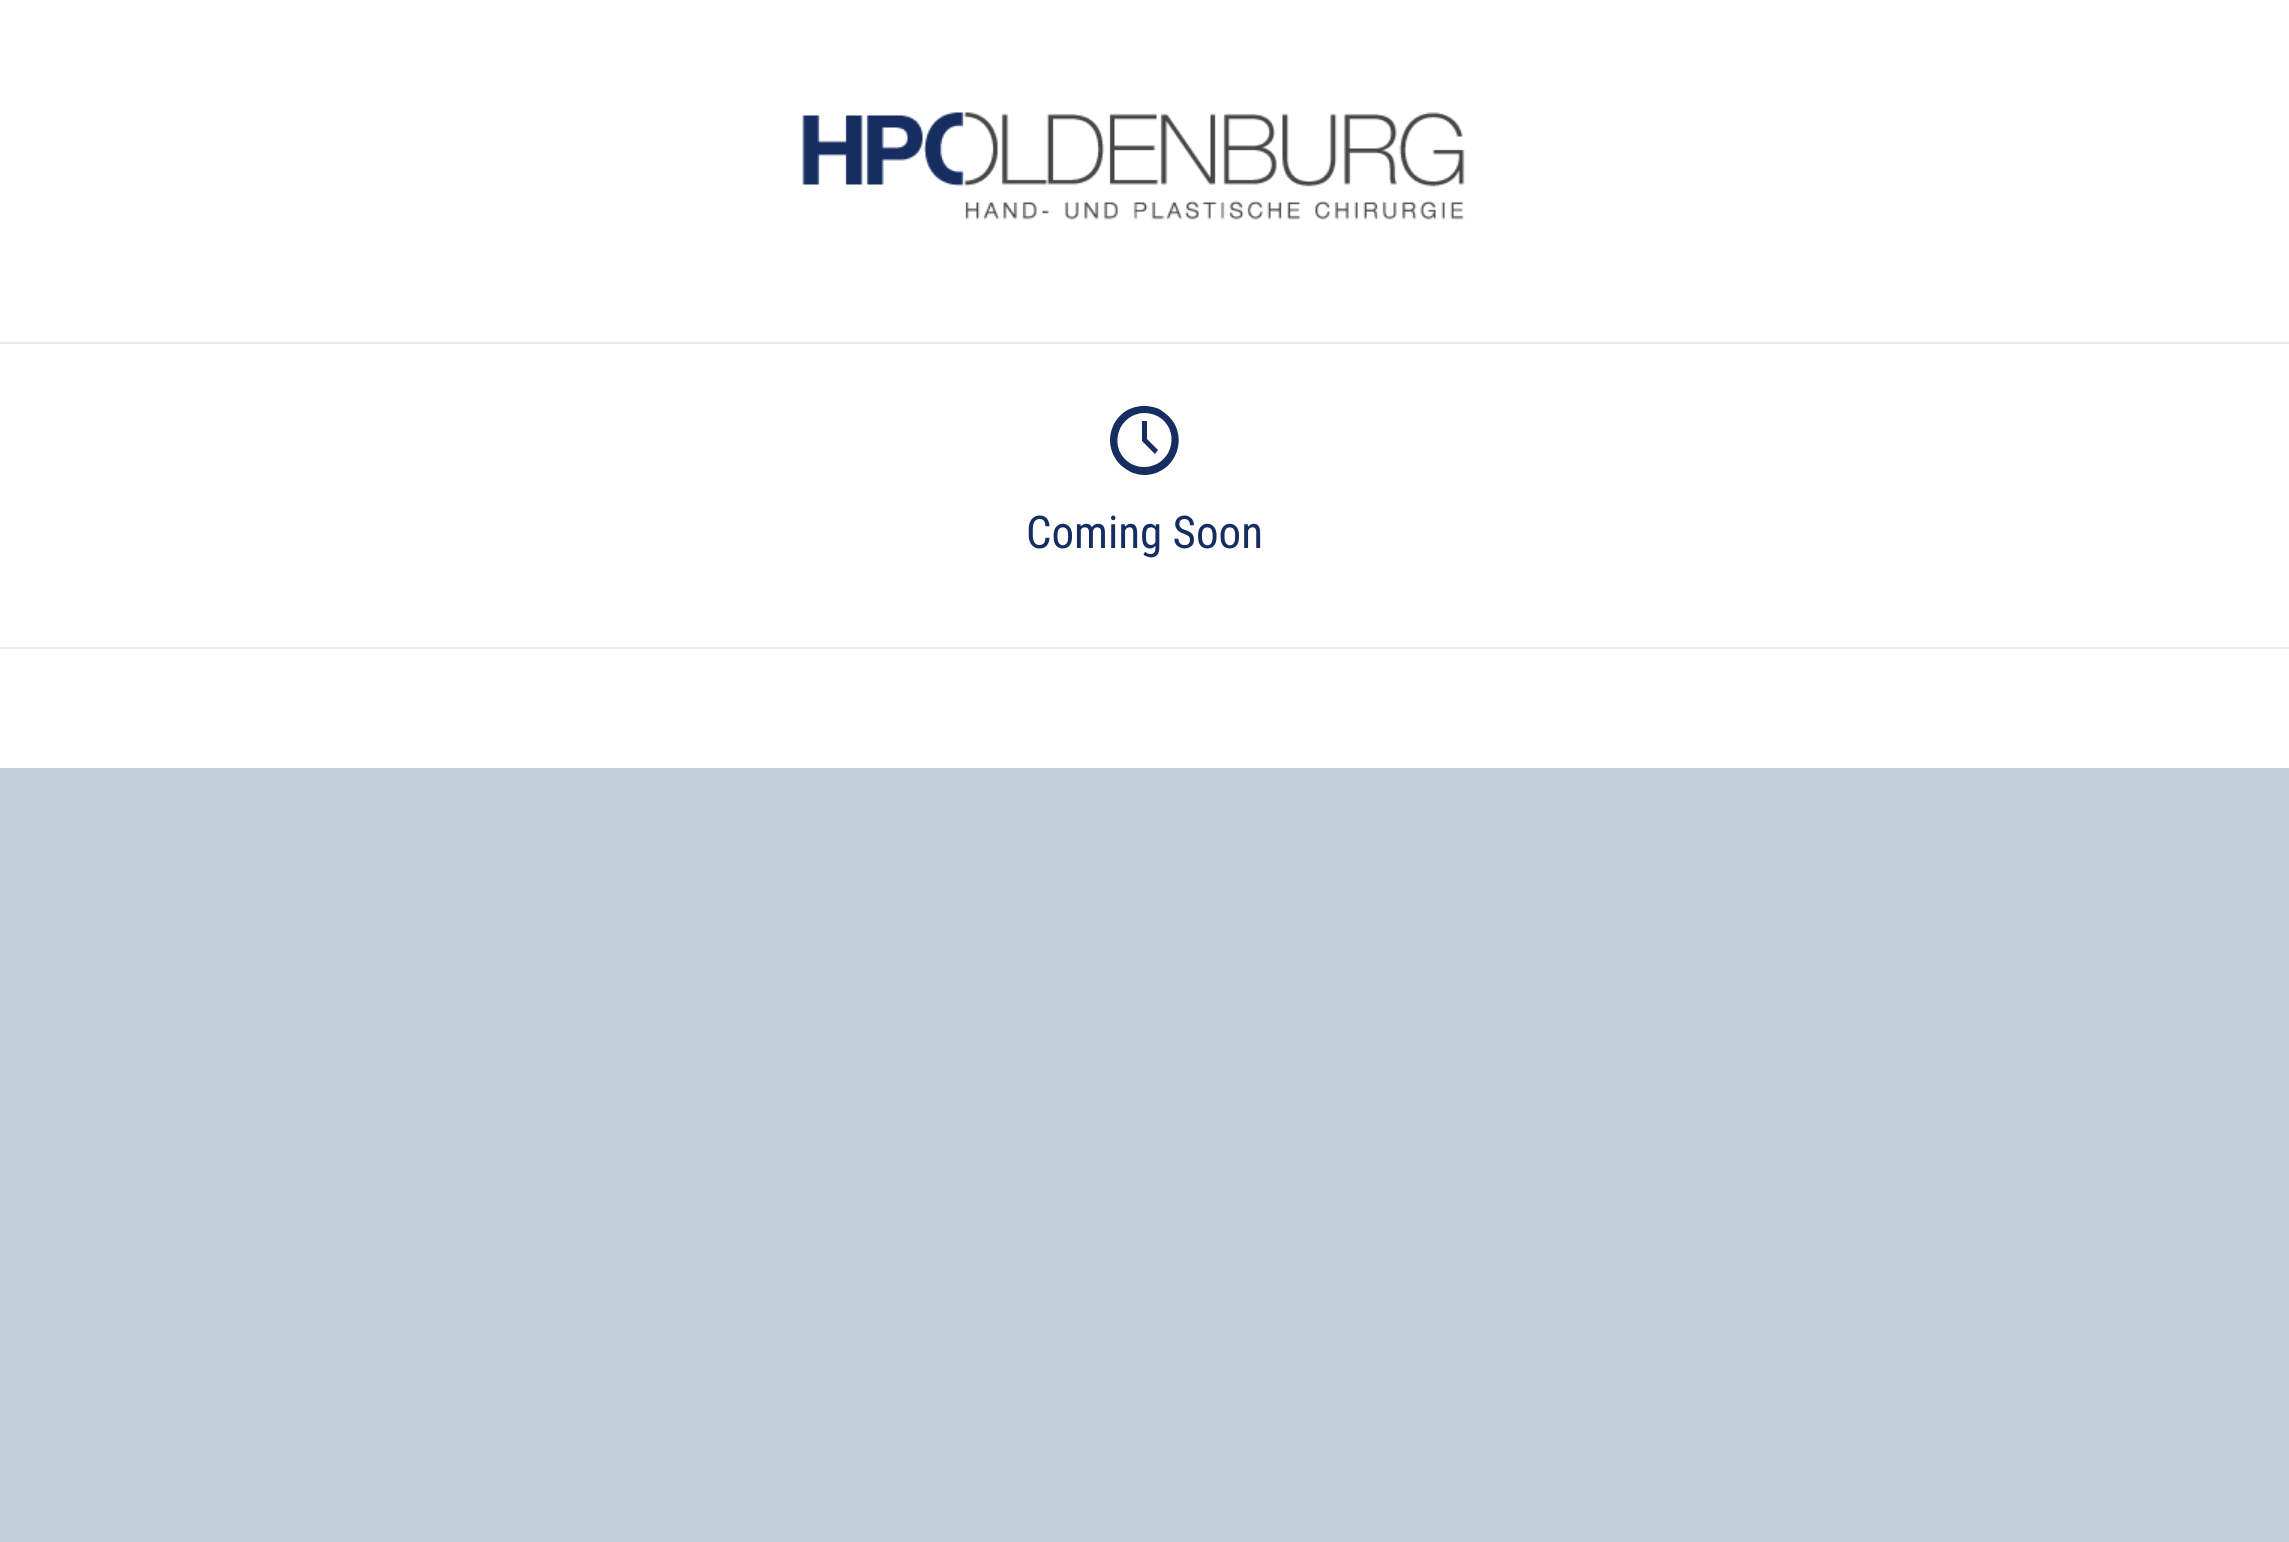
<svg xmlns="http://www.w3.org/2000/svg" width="2289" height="1542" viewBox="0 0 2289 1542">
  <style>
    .t1 { font: 45px Roboto Condensed; fill: #162d62; }
  </style>
  <rect width="100%" height="100%" fill="#c1cfdb"/>
  <rect x="0" y="0" width="2289" height="768" fill="#fff"/>
  <rect x="0" y="342" width="2289" height="2" fill="#ebebeb"/>
  <image x="802" y="112" width="663" height="108" href="images/1.png"/>
  <path d="M1144 406C1152 406 1160 408 1166 414C1191 434 1177 475 1144 475C1137 475 1129 472 1123 467C1098 446 1112 406 1144 406ZM1144 467C1170 467 1181 435 1162 419C1157 415 1151 413 1145 413C1119 413 1108 445 1127 461C1132 465 1138 467 1144 467ZM1147 421V439L1158 450L1155 454L1142 441V421Z" fill="#162d62"/>
  <text x="1026" y="548" class="t1">Coming Soon</text>
  <rect x="0" y="647" width="2289" height="2" fill="#ebebeb"/>
</svg>
